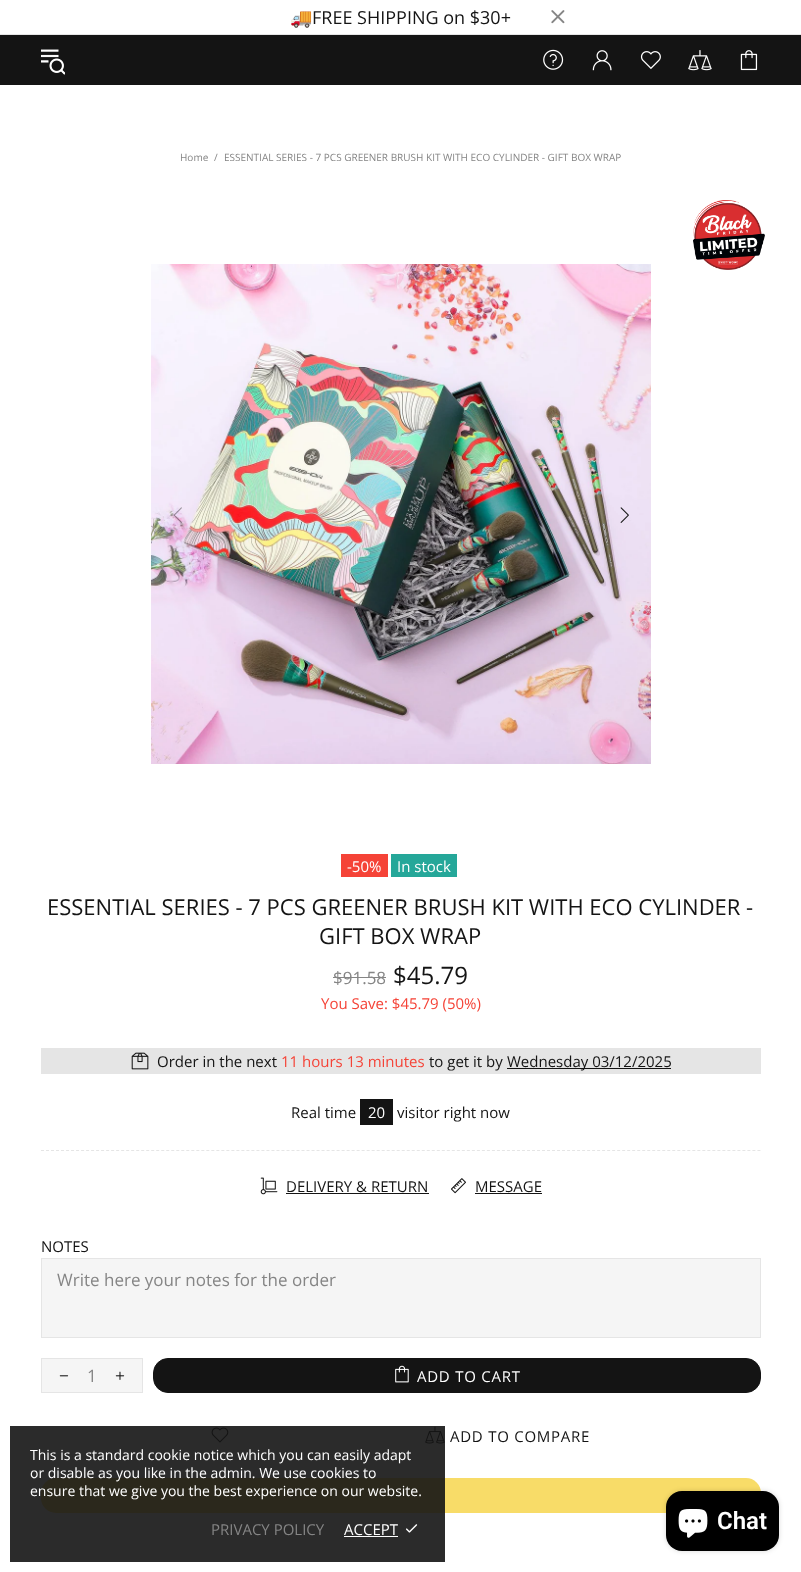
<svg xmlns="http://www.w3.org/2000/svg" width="801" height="1572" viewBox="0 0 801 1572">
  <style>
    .t1 { font: 18px Noto Color Emoji; fill: #141414; }
    .t2 { font: 18px Open Sans; fill: #141414; }
    .t3 { font: 10px Open Sans; fill: #858585; }
    .t4 { font: 15px Open Sans; fill: #fff; }
    .t5 { font: 22px Open Sans; fill: #141414; }
    .t6 { font: 17px Open Sans; fill: #858585; }
    .t7 { font: 24px Open Sans; fill: #141414; }
    .t8 { font: 15px Open Sans; fill: #f54337; }
    .t9 { font: 15px Open Sans; fill: #141414; }
    .t10 { font: 15px Open Sans; letter-spacing: 0.75px; fill: #fff; }
    .t11 { font: 15px Open Sans; letter-spacing: 0.75px; fill: #141414; }
    .t12 { font: 14px Open Sans; fill: #fff; }
    .t13 { font: 15px Open Sans; fill: #858585; }
    .t14 { font: 600 24px Roboto; fill: #fff; }
  </style>
  <rect width="100%" height="100%" fill="#fff"/>
  <rect x="0" y="34" width="801" height="1" fill="#e5e5e5"/>
  <text x="290" y="24" class="t1">🚚</text>
  <text x="312" y="24" class="t2">FREE SHIPPING on $30+</text>
  <image x="551" y="10" width="14" height="14" href="images/1.png"/>
  <rect x="0" y="35" width="801" height="50" fill="#141414"/>
  <image x="41" y="49" width="24" height="26" href="images/2.png"/>
  <image x="543" y="49" width="21" height="21" href="images/3.png"/>
  <image x="592" y="50" width="20" height="21" href="images/4.png"/>
  <image x="640" y="51" width="21" height="19" href="images/5.png"/>
  <image x="688" y="50" width="24" height="21" href="images/6.png"/>
  <image x="740" y="50" width="18" height="21" href="images/7.png"/>
  <text x="180" y="161" class="t3">Home</text>
  <text x="214" y="161" class="t3">/</text>
  <text x="224" y="161" class="t3">ESSENTIAL SERIES - 7 PCS GREENER BRUSH KIT WITH ECO CYLINDER - GIFT BOX WRAP</text>
  <image x="693" y="200" width="72" height="70" href="images/8.png"/>
  <image x="151" y="264" width="500" height="500" href="images/9.png"/>
  <image x="173" y="507" width="9" height="16" href="images/10.png"/>
  <image x="620" y="507" width="9" height="16" href="images/11.png"/>
  <rect x="341" y="854" width="47" height="23" fill="#f54337"/>
  <text x="347" y="872" class="t4">-50%</text>
  <rect x="391" y="854" width="66" height="23" fill="#25a799"/>
  <text x="397" y="872" class="t4">In stock</text>
  <text x="47" y="915" class="t5">ESSENTIAL SERIES - 7 PCS GREENER BRUSH KIT WITH ECO CYLINDER -</text>
  <text x="319" y="944" class="t5">GIFT BOX WRAP</text>
  <text x="333" y="984" class="t6">$91.58</text>
  <rect x="333" y="977" width="53" height="1" fill="#858585"/>
  <text x="393" y="984" class="t7">$45.79</text>
  <text x="321" y="1009" class="t8">You Save: $45.79 (50%)</text>
  <rect x="41" y="1048" width="720" height="26" fill="#e5e5e5"/>
  <image x="131" y="1052" width="18" height="18" href="images/12.png"/>
  <text x="157" y="1067" class="t9">Order in the next</text>
  <text x="281" y="1067" class="t8">11 hours 13 minutes</text>
  <text x="429" y="1067" class="t9">to get it by</text>
  <rect x="507" y="1068" width="164" height="1" fill="#141414"/>
  <text x="507" y="1067" class="t9">Wednesday 03/12/2025</text>
  <text x="291" y="1118" class="t9">Real time</text>
  <rect x="360" y="1099" width="33" height="26" fill="#141414"/>
  <text x="368" y="1118" class="t4">20</text>
  <text x="397" y="1118" class="t9">visitor right now</text>
  <path d="M41 1150.5H761" fill="none" stroke="#e5e5e5" stroke-dasharray="3 2.01"/>
  <image x="260" y="1177" width="18" height="18" href="images/13.png"/>
  <text x="286" y="1192" class="t9">DELIVERY &amp; RETURN</text>
  <rect x="286" y="1193" width="143" height="1" fill="#141414"/>
  <image x="451" y="1178" width="15" height="16" href="images/14.png"/>
  <text x="475" y="1192" class="t9">MESSAGE</text>
  <rect x="475" y="1193" width="67" height="1" fill="#141414"/>
  <text x="41" y="1252" class="t9">NOTES</text>
  <rect x="41.5" y="1258.5" width="719" height="79" fill="#f5f5f5" stroke="#e5e5e5"/>
  <text x="57" y="1286" class="t6">Write here your notes for the order</text>
  <rect x="41.5" y="1358.5" width="101" height="34" fill="#f5f5f5" stroke="#e5e5e5"/>
  <image x="59" y="1375" width="10" height="2" href="images/15.png"/>
  <text x="87" y="1382" class="t6">1</text>
  <image x="115" y="1371" width="10" height="9" href="images/16.png"/>
  <rect x="153.5" y="1358.5" width="607" height="34" rx="14.5" fill="#141414" stroke="#141414"/>
  <image x="395" y="1365" width="14" height="18" href="images/17.png"/>
  <text x="417" y="1382" class="t10">ADD TO CART</text>
  <image x="211" y="1427" width="18" height="16" href="images/18.png"/>
  <image x="425" y="1426" width="20" height="18" href="images/19.png"/>
  <text x="450" y="1442" class="t11">ADD TO COMPARE</text>
  <rect x="41" y="1478" width="720" height="35" rx="15" fill="#f8dc68"/>
  <rect x="10" y="1426" width="435" height="136" fill="#141414e6"/>
  <text x="30" y="1460" class="t12">This is a standard cookie notice which you can easily adapt</text>
  <text x="30" y="1478" class="t12">or disable as you like in the admin. We use cookies to</text>
  <text x="30" y="1496" class="t12">ensure that we give you the best experience on our website.</text>
  <text x="211" y="1535" class="t13">PRIVACY POLICY</text>
  <text x="344" y="1535" class="t4">ACCEPT</text>
  <rect x="344" y="1536" width="54" height="1" fill="#fff"/>
  <image x="406" y="1524" width="12" height="9" href="images/20.png"/>
  <rect x="666" y="1491" width="113" height="60" rx="16" fill="#00000026" filter="blur(2.5px)"/>
  <rect x="666" y="1491" width="113" height="60" rx="16" fill="#000"/>
  <image x="678" y="1509" width="30" height="29" href="images/21.png"/>
  <text x="717" y="1529" class="t14">Chat</text>
</svg>
